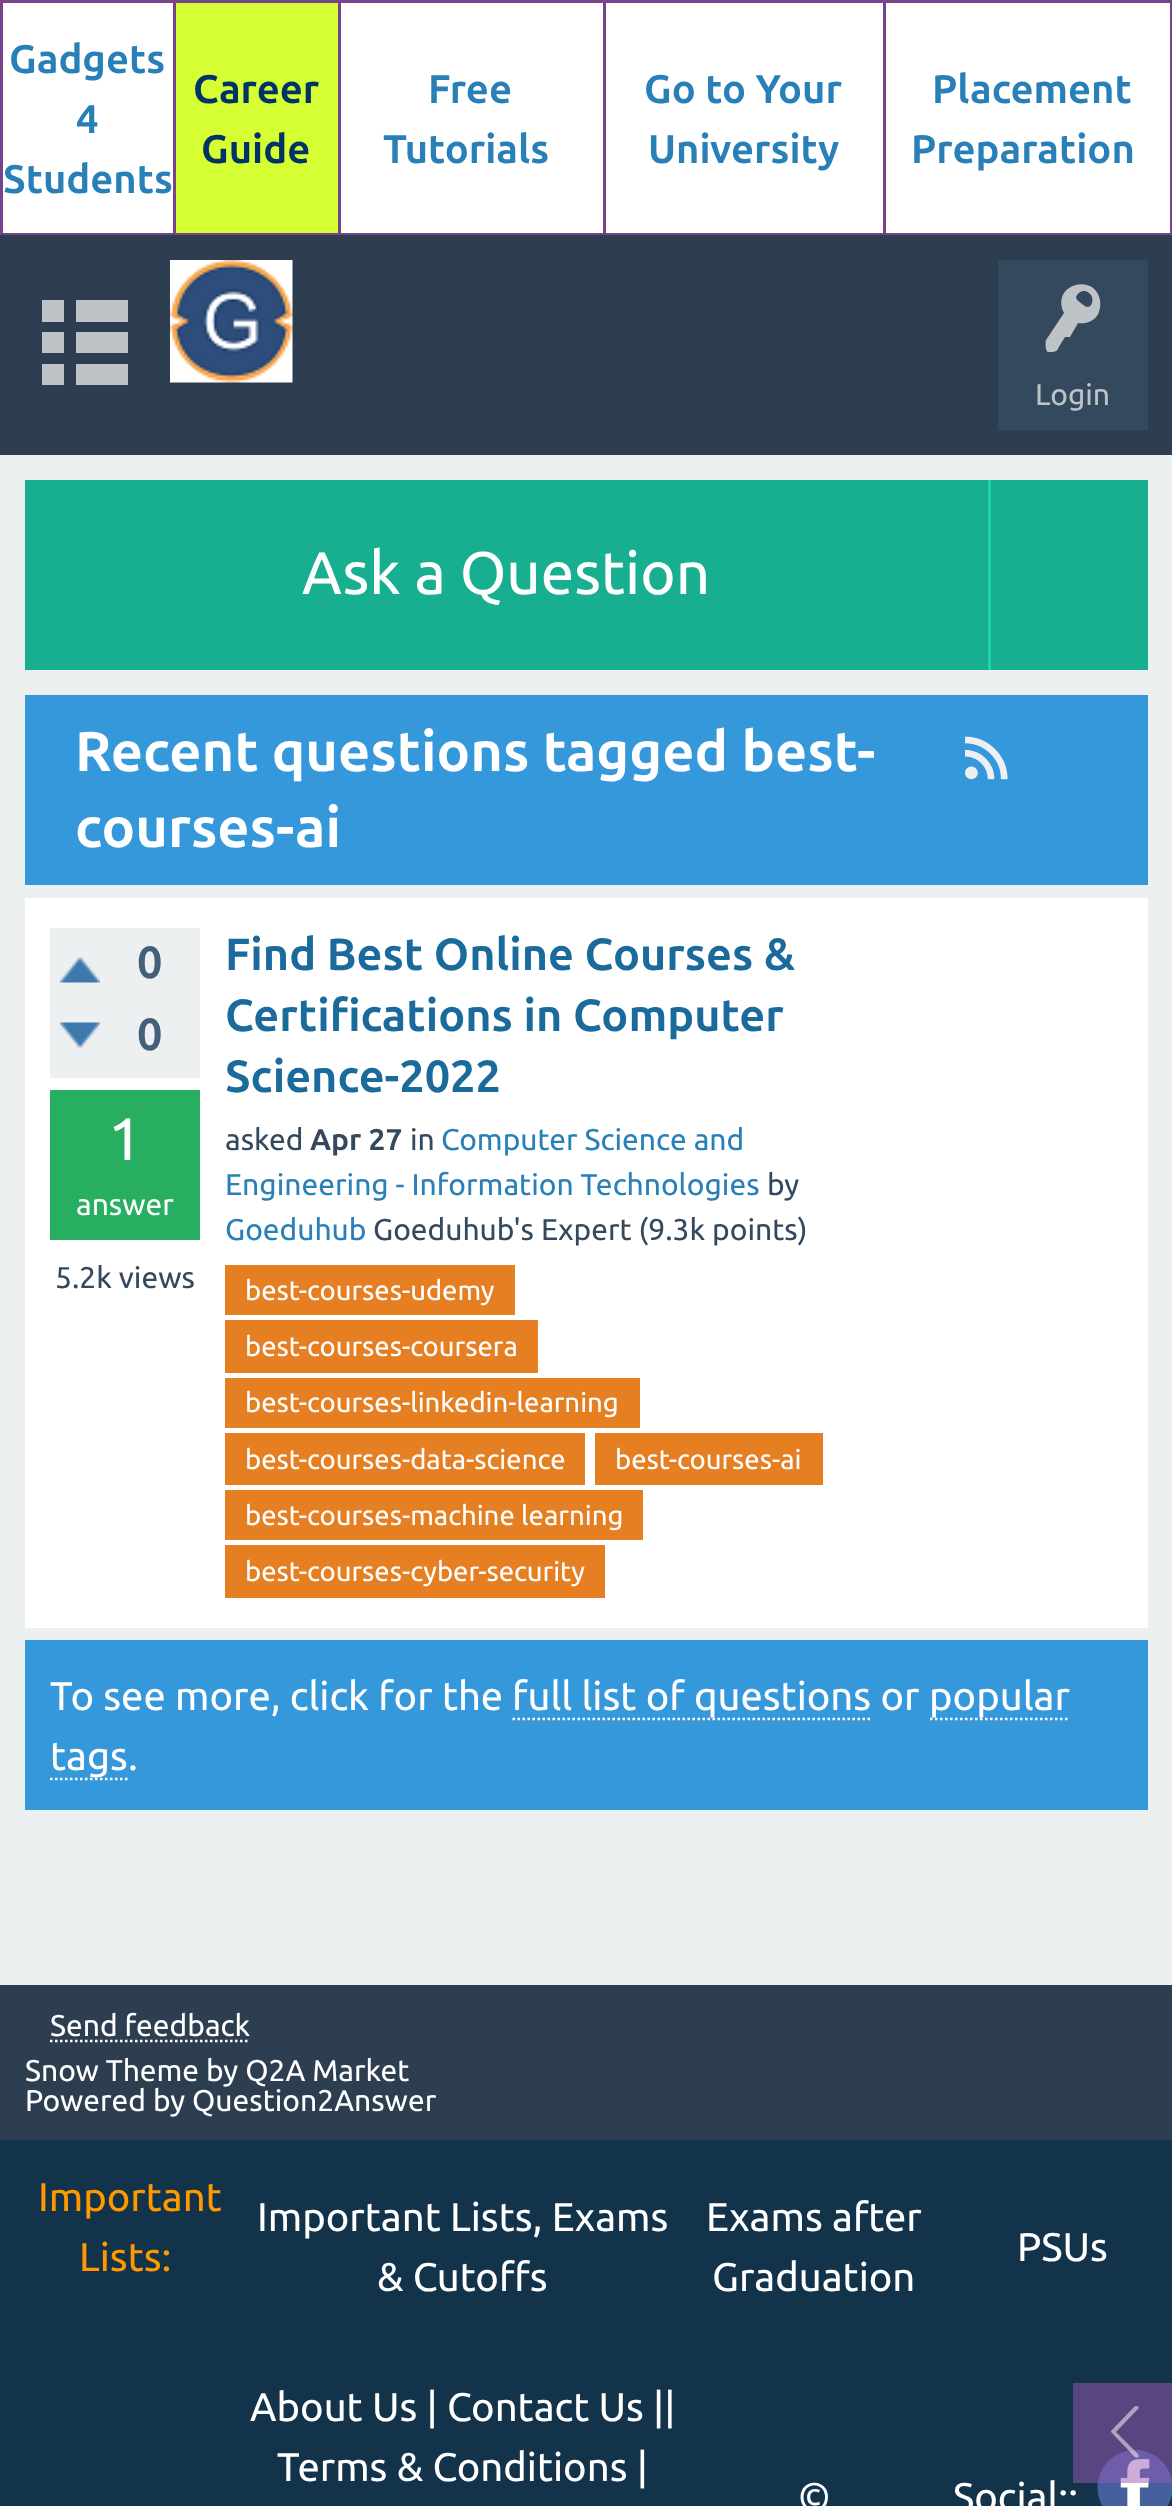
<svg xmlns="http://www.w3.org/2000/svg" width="1172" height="2506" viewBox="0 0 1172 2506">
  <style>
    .t1 { font: bold 40px Ubuntu; fill: #2980b9; }
    .t2 { font: bold 40px Ubuntu; fill: #036; }
    .t3 { font: 30px Ubuntu; fill: #bdc3c7; }
    .t4 { font: 60px Ubuntu; fill: #fff; }
    .t5 { font: bold 56px Ubuntu; fill: #fff; }
    .t6 { font: bold 45px Ubuntu; fill: #445f7a; }
    .t7 { font: 30px Ubuntu; fill: #fff; }
    .t8 { font: 30px Ubuntu; fill: #34495e; }
    .t9 { font: bold 45px Ubuntu; fill: #1a6a9b; }
    .t10 { font: bold 30px Ubuntu; fill: #34495e; }
    .t11 { font: 30px Ubuntu; fill: #2980b9; }
    .t12 { font: 27.5px Ubuntu; fill: #fff; }
    .t13 { font: 40px Ubuntu; fill: #fff; }
    .t14 { font: 40px Ubuntu; fill: #f90; }
  </style>
  <rect width="100%" height="100%" fill="#ecf0f1"/>
  <rect x="0" y="0" width="1172" height="3" fill="#76448a"/>
  <rect x="1170" y="0" width="2" height="235" fill="#76448a"/>
  <rect x="0" y="233" width="1172" height="2" fill="#76448a"/>
  <rect x="0" y="0" width="3" height="235" fill="#76448a"/>
  <rect x="3" y="3" width="170" height="230" fill="#fff"/>
  <text x="9" y="73" class="t1">Gadgets</text>
  <text x="76" y="133" class="t1">4</text>
  <text x="3" y="193" class="t1">Students</text>
  <rect x="176" y="3" width="162" height="230" fill="#d6ff33"/>
  <rect x="173" y="0" width="3" height="235" fill="#76448a"/>
  <text x="193" y="103" class="t2">Career</text>
  <text x="201" y="163" class="t2">Guide</text>
  <rect x="341" y="3" width="262" height="230" fill="#fff"/>
  <rect x="338" y="0" width="3" height="235" fill="#76448a"/>
  <text x="428" y="103" class="t1">Free</text>
  <text x="383" y="163" class="t1">Tutorials</text>
  <rect x="606" y="3" width="277" height="230" fill="#fff"/>
  <rect x="603" y="0" width="3" height="235" fill="#76448a"/>
  <text x="644" y="103" class="t1">Go to Your</text>
  <text x="648" y="163" class="t1">University</text>
  <rect x="886" y="3" width="284" height="230" fill="#fff"/>
  <rect x="883" y="0" width="3" height="235" fill="#76448a"/>
  <text x="932" y="103" class="t1">Placement</text>
  <text x="911" y="163" class="t1">Preparation</text>
  <rect x="0" y="235" width="1172" height="220" fill="#2c3e50"/>
  <path d="M42 385V364H64V385ZM42 353V332H64V353ZM42 322V300H64V322ZM76 385V364H128V385ZM76 353V332H128V353ZM76 322V300H128V322Z" fill="#bdc3c7"/>
  <image x="170" y="260" width="123" height="123" href="images/1.png"/>
  <rect x="998" y="260" width="150" height="170" fill="#34495e"/>
  <path d="M1100 300C1102 315 1093 325 1078 323L1070 337H1065L1060 345C1057 350 1058 351 1053 352C1048 352 1047 353 1046 349C1045 338 1046 341 1052 331L1064 313C1050 284 1095 272 1100 300ZM1091 305C1097 296 1084 285 1077 295C1074 299 1079 301 1082 304C1085 306 1088 309 1091 305Z" fill="#bdc3c7"/>
  <text x="1035" y="405" class="t3">Login</text>
  <rect x="25" y="480" width="963" height="190" fill="#18af91"/>
  <text x="302" y="594" class="t4">Ask a Question</text>
  <rect x="991" y="480" width="157" height="190" fill="#18af91"/>
  <rect x="988" y="480" width="3" height="190" fill="#1dd2af"/>
  <rect x="25" y="695" width="1123" height="190" fill="#3498db"/>
  <text x="75" y="771" class="t5">Recent questions tagged best-</text>
  <text x="75" y="847" class="t5">courses-ai</text>
  <image x="965" y="736" width="43" height="44" href="images/2.png"/>
  <rect x="25" y="898" width="1123" height="730" fill="#fff"/>
  <rect x="50" y="928" width="150" height="150" fill="#ecf0f1"/>
  <image x="60" y="957" width="40" height="26" href="images/3.png"/>
  <image x="60" y="1022" width="40" height="26" href="images/4.png"/>
  <text x="137" y="978" class="t6">0</text>
  <text x="137" y="1050" class="t6">0</text>
  <rect x="50" y="1090" width="150" height="150" fill="#27ae60"/>
  <text x="108" y="1160" class="t4">1</text>
  <text x="76" y="1215" class="t7">answer</text>
  <text x="55" y="1288" class="t8">5.2k views</text>
  <text x="225" y="970" class="t9">Find Best Online Courses &amp;</text>
  <text x="225" y="1031" class="t9">Certifications in Computer</text>
  <text x="225" y="1092" class="t9">Science-2022</text>
  <text x="225" y="1150" class="t8">asked</text>
  <text x="310" y="1150" class="t10">Apr 27</text>
  <text x="410" y="1150" class="t8">in</text>
  <text x="441" y="1150" class="t11">Computer Science and</text>
  <text x="225" y="1195" class="t11">Engineering - Information Technologies</text>
  <text x="767" y="1195" class="t8">by</text>
  <text x="225" y="1240" class="t11">Goeduhub</text>
  <text x="373" y="1240" class="t8">Goeduhub's Expert (9.3k points)</text>
  <rect x="225" y="1265" width="290" height="50" fill="#e67e22"/>
  <text x="245" y="1300" class="t12">best-courses-udemy</text>
  <rect x="225" y="1320" width="313" height="53" fill="#e67e22"/>
  <text x="245" y="1356" class="t12">best-courses-coursera</text>
  <rect x="225" y="1378" width="415" height="50" fill="#e67e22"/>
  <text x="245" y="1412" class="t12">best-courses-linkedin-learning</text>
  <rect x="225" y="1433" width="360" height="52" fill="#e67e22"/>
  <text x="245" y="1469" class="t12">best-courses-data-science</text>
  <rect x="595" y="1433" width="228" height="52" fill="#e67e22"/>
  <text x="615" y="1469" class="t12">best-courses-ai</text>
  <rect x="225" y="1490" width="418" height="50" fill="#e67e22"/>
  <text x="245" y="1525" class="t12">best-courses-machine learning</text>
  <rect x="225" y="1545" width="380" height="53" fill="#e67e22"/>
  <text x="245" y="1581" class="t12">best-courses-cyber-security</text>
  <rect x="25" y="1640" width="1123" height="170" fill="#3498db"/>
  <text x="50" y="1710" class="t13">To see more, click for the</text>
  <path d="M512.5 1719H872.5" fill="none" stroke="#fff" stroke-width="2.5" stroke-dasharray="2.5 2.5"/>
  <text x="512" y="1710" class="t13">full list of questions or</text>
  <path d="M930 1719H1070" fill="none" stroke="#fff" stroke-width="2.5" stroke-dasharray="2.5 2.5"/>
  <text x="929" y="1710" class="t13">popular</text>
  <path d="M50 1779H127.5" fill="none" stroke="#fff" stroke-width="2.5" stroke-dasharray="2.5 2.5"/>
  <text x="50" y="1770" class="t13">tags.</text>
  <rect x="0" y="2140" width="1172" height="366" fill="#12334a"/>
  <text x="953" y="2511" class="t13">Social::</text>
  <image x="1097" y="2450" width="75" height="56" href="images/5.png"/>
  <rect x="1073" y="2383" width="99" height="100" fill="#9b59b680"/>
  <path d="M1138 2454L1139 2456C1137 2461 1131 2453 1131 2453L1111 2432V2431L1135 2406H1137C1142 2407 1135 2412 1134 2413L1116 2432Z" fill="#ffffff80"/>
  <rect x="0" y="1985" width="1172" height="155" fill="#2c3e50"/>
  <path d="M50 2041H250" fill="none" stroke="#fff" stroke-width="2.5" stroke-dasharray="2.5 2.5"/>
  <text x="50" y="2036" class="t7">Send feedback</text>
  <text x="25" y="2081" class="t7">Snow Theme by Q2A Market</text>
  <text x="25" y="2111" class="t7">Powered by Question2Answer</text>
  <text x="38" y="2211" class="t14">Important</text>
  <text x="79" y="2271" class="t14">Lists:</text>
  <text x="257" y="2231" class="t13">Important Lists, Exams</text>
  <text x="377" y="2291" class="t13">&amp; Cutoffs</text>
  <text x="706" y="2231" class="t13">Exams after</text>
  <text x="712" y="2291" class="t13">Graduation</text>
  <text x="1017" y="2261" class="t13">PSUs</text>
  <text x="250" y="2421" class="t13">About Us | Contact Us ||</text>
  <text x="277" y="2481" class="t13">Terms &amp; Conditions |</text>
  <text x="798" y="2511" class="t13">©</text>
</svg>
